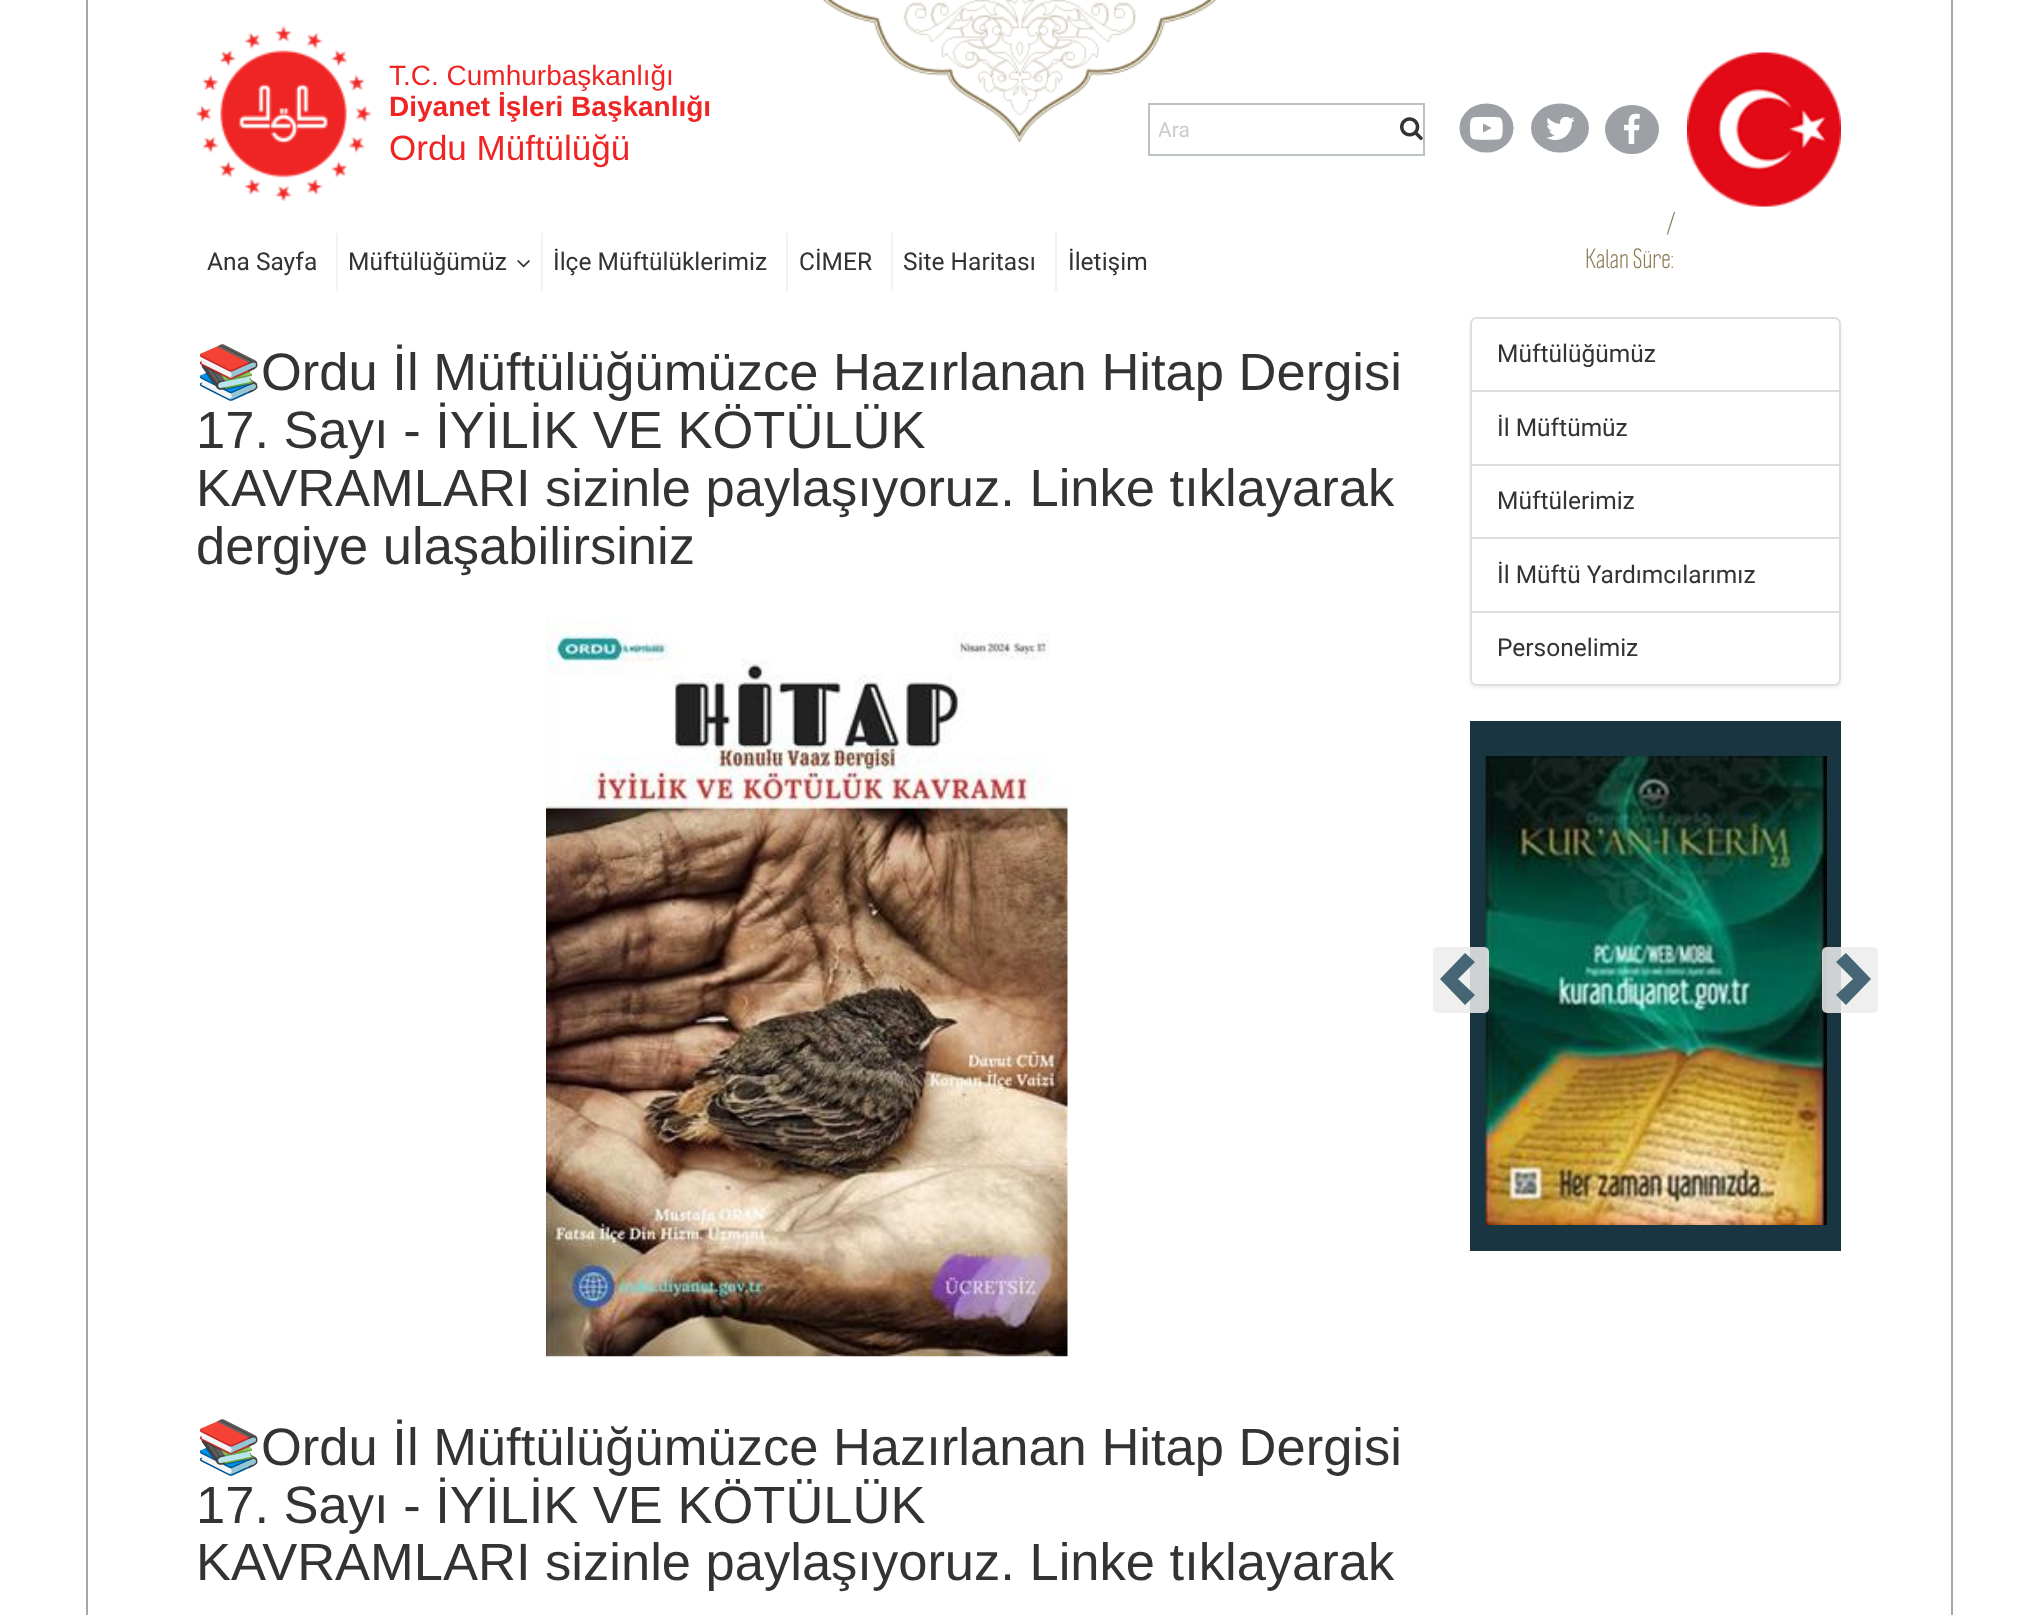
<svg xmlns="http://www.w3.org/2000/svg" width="2037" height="1615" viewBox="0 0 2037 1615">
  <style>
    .t1 { font: 28px Liberation Sans; fill: #ee2524; }
    .t2 { font: bold 28px Liberation Sans; fill: #ee2524; }
    .t3 { font: 35px Liberation Sans; fill: #ee2524; }
    .t4 { font: 21px Roboto; fill: #caccce; }
    .t5 { font: 24.5px Roboto; fill: #333; }
    .t6 { font: 24.5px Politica; fill: #8c7c56; }
    .t7 { font: 52.5px Noto Color Emoji; fill: #333; }
    .t8 { font: 52.5px Liberation Sans; fill: #333; }
  </style>
  <defs>
    <clipPath id="clip1"><rect x="1159" y="117" width="227" height="25"/></clipPath>
    <clipPath id="clip2"><path d="M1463 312H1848V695H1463ZM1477 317H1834C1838 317 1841 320 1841 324V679C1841 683 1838 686 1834 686H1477C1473 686 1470 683 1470 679V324C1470 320 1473 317 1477 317Z" clip-rule="evenodd"/></clipPath>
  </defs>
  <rect width="100%" height="100%" fill="#fff"/>
  <rect x="1951" y="0" width="2" height="1615" fill="#a1aaa6"/>
  <rect x="86" y="0" width="2" height="1615" fill="#a1aaa6"/>
  <image x="823" y="0" width="394" height="142" href="images/1.png"/>
  <image x="196" y="26" width="175" height="176" href="images/2.png"/>
  <text x="389" y="85" class="t1">T.C. Cumhurbaşkanlığı</text>
  <text x="389" y="116" class="t2">Diyanet İşleri Başkanlığı</text>
  <text x="389" y="160" class="t3">Ordu Müftülüğü</text>
  <rect x="1149" y="104" width="275" height="51" fill="none" stroke="#bac2c6" stroke-width="2"/>
  <g clip-path="url(#clip1)">
    <text x="1158" y="137" class="t4">Ara</text>
  </g>
  <image x="1400" y="117" width="23" height="23" href="images/3.png"/>
  <ellipse cx="1486.5" cy="128" rx="27" ry="24.5" fill="#9da0a5"/>
  <image x="1470" y="117" width="33" height="23" href="images/4.png"/>
  <ellipse cx="1560" cy="128" rx="29" ry="24.5" fill="#9da0a5"/>
  <image x="1546" y="117" width="29" height="23" href="images/5.png"/>
  <ellipse cx="1632" cy="129.5" rx="27" ry="24.5" fill="#9da0a5"/>
  <image x="1624" y="113" width="16" height="32" href="images/6.png"/>
  <image x="1687" y="52" width="154" height="155" href="images/7.png"/>
  <rect x="336" y="233" width="2" height="58" fill="#f2f2f2"/>
  <text x="207" y="270" class="t5">Ana Sayfa</text>
  <rect x="541" y="233" width="2" height="58" fill="#f2f2f2"/>
  <text x="348" y="270" class="t5">Müftülüğümüz</text>
  <image x="517" y="260" width="13" height="8" href="images/8.png"/>
  <rect x="786" y="233" width="2" height="58" fill="#f2f2f2"/>
  <text x="553" y="270" class="t5">İlçe Müftülüklerimiz</text>
  <rect x="891" y="233" width="2" height="58" fill="#f2f2f2"/>
  <text x="799" y="270" class="t5">CİMER</text>
  <rect x="1055" y="233" width="2" height="58" fill="#f2f2f2"/>
  <text x="903" y="270" class="t5">Site Haritası</text>
  <text x="1068" y="270" class="t5">İletişim</text>
  <text x="1667" y="233" class="t6">/</text>
  <text x="1585" y="268" class="t6">Kalan Süre:</text>
  <text x="196" y="390" class="t7">📚</text>
  <text x="261" y="390" class="t8">Ordu İl Müftülüğümüzce Hazırlanan Hitap Dergisi</text>
  <text x="196" y="448" class="t8">17. Sayı - İYİLİK VE KÖTÜLÜK</text>
  <text x="196" y="506" class="t8">KAVRAMLARI sizinle paylaşıyoruz. Linke tıklayarak</text>
  <text x="196" y="564" class="t8">dergiye ulaşabilirsiniz</text>
  <image x="546" y="618" width="522" height="739" href="images/9.png"/>
  <text x="196" y="1465" class="t7">📚</text>
  <text x="261" y="1465" class="t8">Ordu İl Müftülüğümüzce Hazırlanan Hitap Dergisi</text>
  <text x="196" y="1523" class="t8">17. Sayı - İYİLİK VE KÖTÜLÜK</text>
  <text x="196" y="1580" class="t8">KAVRAMLARI sizinle paylaşıyoruz. Linke tıklayarak</text>
  <g clip-path="url(#clip2)">
    <rect x="1470" y="319" width="371" height="369" rx="7" fill="#00000012" filter="blur(2px)"/>
  </g>
  <path d="M1477 318H1834C1837.5 318 1840 320.5 1840 324V391H1471V324C1471 320.5 1473.5 318 1477 318Z" fill="none" stroke="#ddd" stroke-width="2"/>
  <text x="1497" y="362" class="t5">Müftülüğümüz</text>
  <rect x="1471" y="391" width="369" height="74" fill="none" stroke="#ddd" stroke-width="2"/>
  <text x="1497" y="436" class="t5">İl Müftümüz</text>
  <rect x="1471" y="465" width="369" height="73" fill="none" stroke="#ddd" stroke-width="2"/>
  <text x="1497" y="509" class="t5">Müftülerimiz</text>
  <rect x="1471" y="538" width="369" height="74" fill="none" stroke="#ddd" stroke-width="2"/>
  <text x="1497" y="583" class="t5">İl Müftü Yardımcılarımız</text>
  <path d="M1471 612H1840V679C1840 682.5 1837.5 685 1834 685H1477C1473.5 685 1471 682.5 1471 679Z" fill="#fff" stroke="#ddd" stroke-width="2"/>
  <text x="1497" y="656" class="t5">Personelimiz</text>
  <rect x="1470" y="721" width="371" height="530" fill="#193541"/>
  <image x="1485" y="756" width="342" height="469" href="images/10.png"/>
  <rect x="1433" y="947" width="56" height="66" rx="5" fill="#ecececdb"/>
  <path d="M1475 962L1458 979L1475 995L1465 1005L1440 979L1465 953Z" fill="#466675"/>
  <rect x="1822" y="947" width="56" height="66" rx="5" fill="#ecececdb"/>
  <path d="M1871 979L1846 1005L1836 995L1853 979L1836 962L1846 953Z" fill="#466675"/>
</svg>
